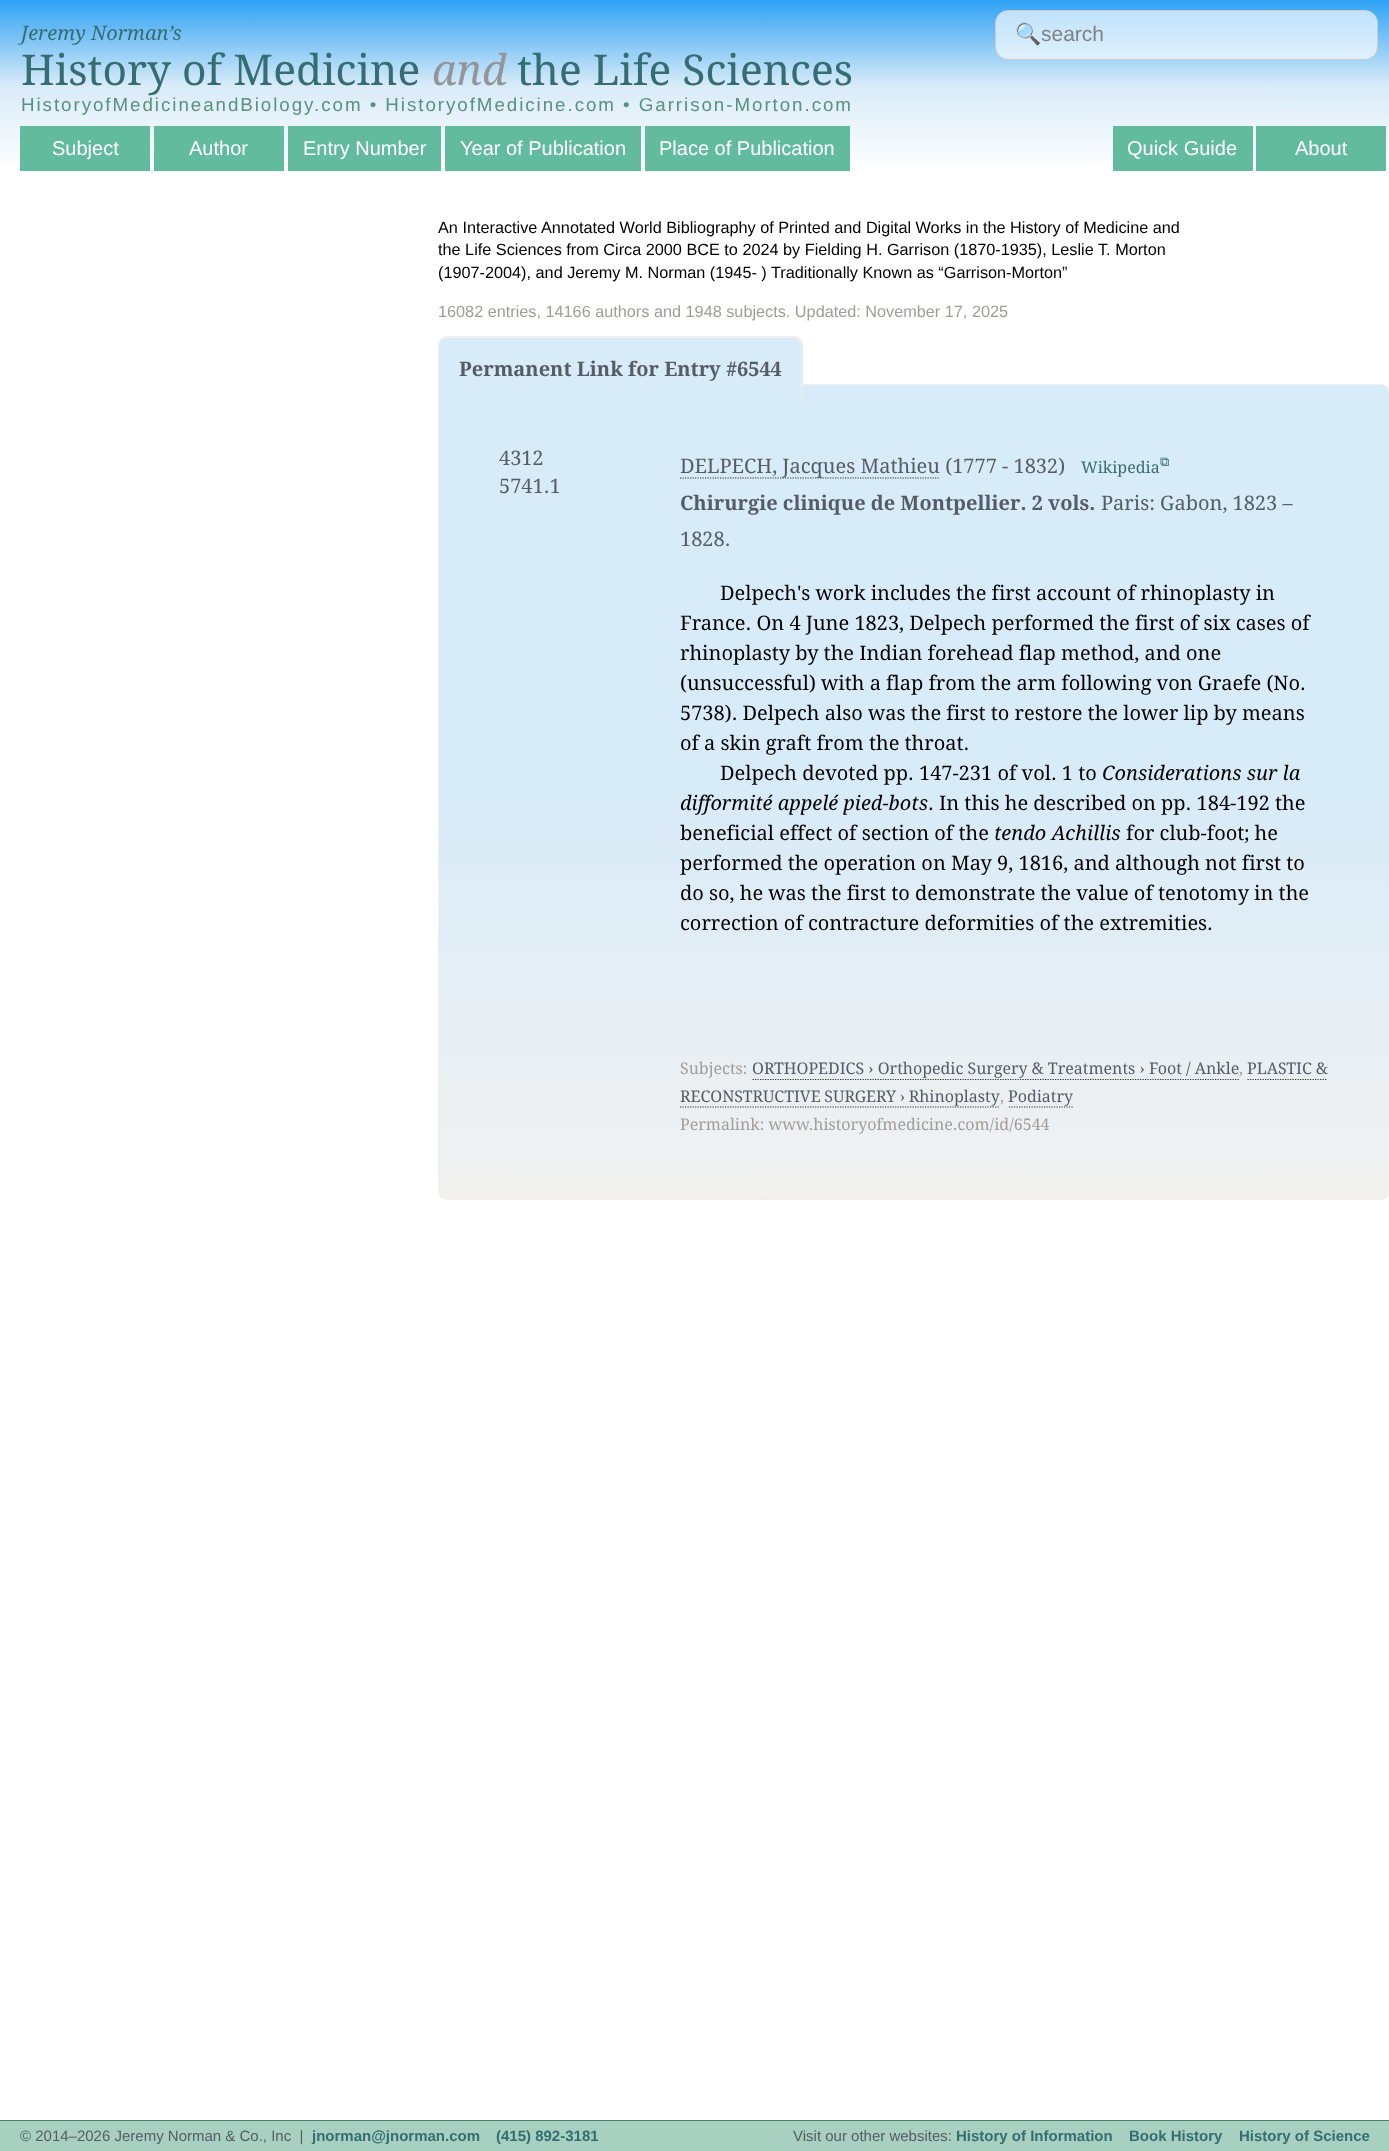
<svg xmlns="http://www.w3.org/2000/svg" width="1389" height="2151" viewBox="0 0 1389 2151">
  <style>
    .t1 { font: italic 20px Droid Serif; fill: #356d71; }
    .t2 { font: 42.5px Droid Serif; fill: #356d71; }
    .t3 { font: italic 42.5px Droid Serif; fill: #939598; }
    .t4 { font: 18.75px Liberation Sans; letter-spacing: 1.95px; fill: #5a907e; }
    .t5 { font: 21px Noto Color Emoji; fill: #828282; }
    .t6 { font: 21px Liberation Sans; fill: #828282; }
    .t7 { font: 20px Liberation Sans; fill: #fff; }
    .t8 { font: 16.25px Liberation Sans; fill: #000; }
    .t9 { font: 16.25px Liberation Sans; fill: #a19c99; }
    .t10 { font: bold 20px Droid Serif; fill: #555c66; }
    .t11 { font: 20px Droid Serif; fill: #555c66; }
    .t12 { font: 16px Droid Serif; fill: #356d71; }
    .t13 { font: 13px FreeSerif; fill: #356d71; }
    .t14 { font: 20px Droid Serif; fill: #000; }
    .t15 { font: italic 20px Droid Serif; fill: #000; }
    .t16 { font: 16px Droid Serif; fill: #a19c99; }
    .t17 { font: 16px Droid Serif; fill: #555c66; }
    .t18 { font: 15px Liberation Sans; fill: #555c66; }
    .t19 { font: bold 15px Liberation Sans; fill: #356d71; }
  </style>
  <defs>
    <linearGradient id="g1" gradientUnits="userSpaceOnUse" x1="695" y1="0" x2="695" y2="171"><stop offset="0" stop-color="#2ea2f5"/><stop offset="0.5" stop-color="#d8ebf8"/><stop offset="1" stop-color="#fff"/></linearGradient>
    <clipPath id="clip1"><rect x="438" y="384" width="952" height="816" rx="10"/></clipPath>
    <linearGradient id="g2" gradientUnits="userSpaceOnUse" x1="914" y1="385" x2="914" y2="1199"><stop offset="0" stop-color="#d8ebf8"/><stop offset="0.5" stop-color="#d8ebf8"/><stop offset="1" stop-color="#f2f1f0"/></linearGradient>
  </defs>
  <rect width="100%" height="100%" fill="#fff"/>
  <rect x="0" y="0" width="1389" height="166" fill="url(#g1)"/>
  <text x="21" y="40" class="t1">Jeremy Norman’s</text>
  <text x="21" y="85" class="t2">History of Medicine</text>
  <text x="432" y="85" class="t3">and</text>
  <text x="517" y="85" class="t2">the Life Sciences</text>
  <text x="21" y="111" class="t4">HistoryofMedicineandBiology.com • HistoryofMedicine.com • Garrison-Morton.com</text>
  <rect x="995.5" y="10.5" width="382" height="49" rx="12.5" fill="#ffffffa8" stroke="#ccc"/>
  <text x="1015" y="41" class="t5">🔍</text>
  <text x="1041" y="41" class="t6">search</text>
  <rect x="20" y="126" width="130" height="45" fill="#62bb9d"/>
  <text x="52" y="155" class="t7">Subject</text>
  <rect x="154" y="126" width="130" height="45" fill="#62bb9d"/>
  <text x="189" y="155" class="t7">Author</text>
  <rect x="288" y="126" width="153" height="45" fill="#62bb9d"/>
  <text x="303" y="155" class="t7">Entry Number</text>
  <rect x="445" y="126" width="196" height="45" fill="#62bb9d"/>
  <text x="460" y="155" class="t7">Year of Publication</text>
  <rect x="645" y="126" width="205" height="45" fill="#62bb9d"/>
  <text x="659" y="155" class="t7">Place of Publication</text>
  <rect x="1113" y="126" width="140" height="45" fill="#62bb9d"/>
  <text x="1127" y="155" class="t7">Quick Guide</text>
  <rect x="1256" y="126" width="130" height="45" fill="#62bb9d"/>
  <text x="1295" y="155" class="t7">About</text>
  <text x="438" y="233" class="t8">An Interactive Annotated World Bibliography of Printed and Digital Works in the History of Medicine and</text>
  <text x="438" y="255" class="t8">the Life Sciences from Circa 2000 BCE to 2024 by Fielding H. Garrison (1870-1935), Leslie T. Morton</text>
  <text x="438" y="278" class="t8">(1907-2004), and Jeremy M. Norman (1945- ) Traditionally Known as “Garrison-Morton”</text>
  <text x="438" y="317" class="t9">16082 entries, 14166 authors and 1948 subjects. Updated: November 17, 2025</text>
  <g clip-path="url(#clip1)">
    <rect x="438" y="385" width="951" height="814" fill="url(#g2)"/>
  </g>
  <rect x="438.5" y="384.5" width="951" height="815" rx="9.5" fill="none" stroke="#f1efee"/>
  <path d="M448 336H793C798.5 336 803 340.5 803 346V401H438V346C438 340.5 442.5 336 448 336Z" fill="#d8ebf8"/>
  <path d="M448 336H792C798 336 802 341 802 346V401H438V346C438 341 442 336 448 336ZM448 338H792C797 338 801 341 801 346V401H439V346C439 341 443 338 448 338Z" fill="#f1efee" fill-rule="evenodd"/>
  <text x="459" y="376" class="t10">Permanent Link for Entry #6544</text>
  <text x="499" y="465" class="t11">4312</text>
  <text x="499" y="493" class="t11">5741.1</text>
  <path d="M680 478H940" fill="none" stroke="#333" stroke-width="1.2" stroke-dasharray="1.25 1.25"/>
  <text x="680" y="473" class="t11">DELPECH, Jacques Mathieu (1777 - 1832)</text>
  <text x="1081" y="473" class="t12">Wikipedia</text>
  <text x="1160" y="466" class="t13">⧉</text>
  <text x="680" y="510" class="t10">Chirurgie clinique de Montpellier. 2 vols.</text>
  <text x="1101" y="510" class="t11">Paris: Gabon, 1823 –</text>
  <text x="680" y="546" class="t11">1828.</text>
  <text x="720" y="600" class="t14">Delpech's work includes the first account of rhinoplasty in</text>
  <text x="680" y="630" class="t14">France. On 4 June 1823, Delpech performed the first of six cases of</text>
  <text x="680" y="660" class="t14">rhinoplasty by the Indian forehead flap method, and one</text>
  <text x="680" y="690" class="t14">(unsuccessful) with a flap from the arm following von Graefe (No.</text>
  <text x="680" y="720" class="t14">5738). Delpech also was the first to restore the lower lip by means</text>
  <text x="680" y="750" class="t14">of a skin graft from the throat.</text>
  <text x="720" y="780" class="t14">Delpech devoted pp. 147-231 of vol. 1 to</text>
  <text x="1102" y="780" class="t15">Considerations sur la</text>
  <text x="680" y="810" class="t15">difformité appelé pied-bots</text>
  <text x="928" y="810" class="t14">. In this he described on pp. 184-192 the</text>
  <text x="680" y="840" class="t14">beneficial effect of section of the</text>
  <text x="994" y="840" class="t15">tendo Achillis</text>
  <text x="1126" y="840" class="t14">for club-foot; he</text>
  <text x="680" y="870" class="t14">performed the operation on May 9, 1816, and although not first to</text>
  <text x="680" y="900" class="t14">do so, he was the first to demonstrate the value of tenotomy in the</text>
  <text x="680" y="930" class="t14">correction of contracture deformities of the extremities.</text>
  <text x="680" y="1074" class="t16">Subjects:</text>
  <text x="752" y="1074" class="t17">ORTHOPEDICS › Orthopedic Surgery &amp; Treatments › Foot / Ankle</text>
  <text x="1239" y="1074" class="t16">,</text>
  <path d="M752.5 1079.5H1239" fill="none" stroke="#333" stroke-width="1.2" stroke-dasharray="1.25 1.25"/>
  <path d="M1247.5 1079.5H1327.5" fill="none" stroke="#333" stroke-width="1.2" stroke-dasharray="1.25 1.25"/>
  <text x="1247" y="1074" class="t17">PLASTIC &amp;</text>
  <text x="680" y="1102" word-spacing="-0.5" class="t17">RECONSTRUCTIVE SURGERY › Rhinoplasty</text>
  <text x="1000" y="1102" class="t16">,</text>
  <path d="M680 1107H1000" fill="none" stroke="#333" stroke-width="1.2" stroke-dasharray="1.25 1.25"/>
  <path d="M1009 1107H1074" fill="none" stroke="#333" stroke-width="1.2" stroke-dasharray="1.25 1.25"/>
  <text x="1008" y="1102" class="t17">Podiatry</text>
  <text x="680" y="1130" class="t16">Permalink: www.historyofmedicine.com/id/6544</text>
  <rect x="0" y="2121" width="1389" height="30" fill="#a7d0c0"/>
  <rect x="0" y="2120" width="1389" height="1" fill="#4a7f6d"/>
  <text x="20" y="2141" class="t18" xml:space="preserve">© 2014–2026 Jeremy Norman &amp; Co., Inc  |</text>
  <text x="312" y="2141" class="t19">jnorman@jnorman.com</text>
  <text x="496" y="2141" class="t19">(415) 892-3181</text>
  <text x="793" y="2141" class="t18">Visit our other websites:</text>
  <text x="956" y="2141" class="t19">History of Information</text>
  <text x="1129" y="2141" class="t19">Book History</text>
  <text x="1239" y="2141" class="t19">History of Science</text>
</svg>
